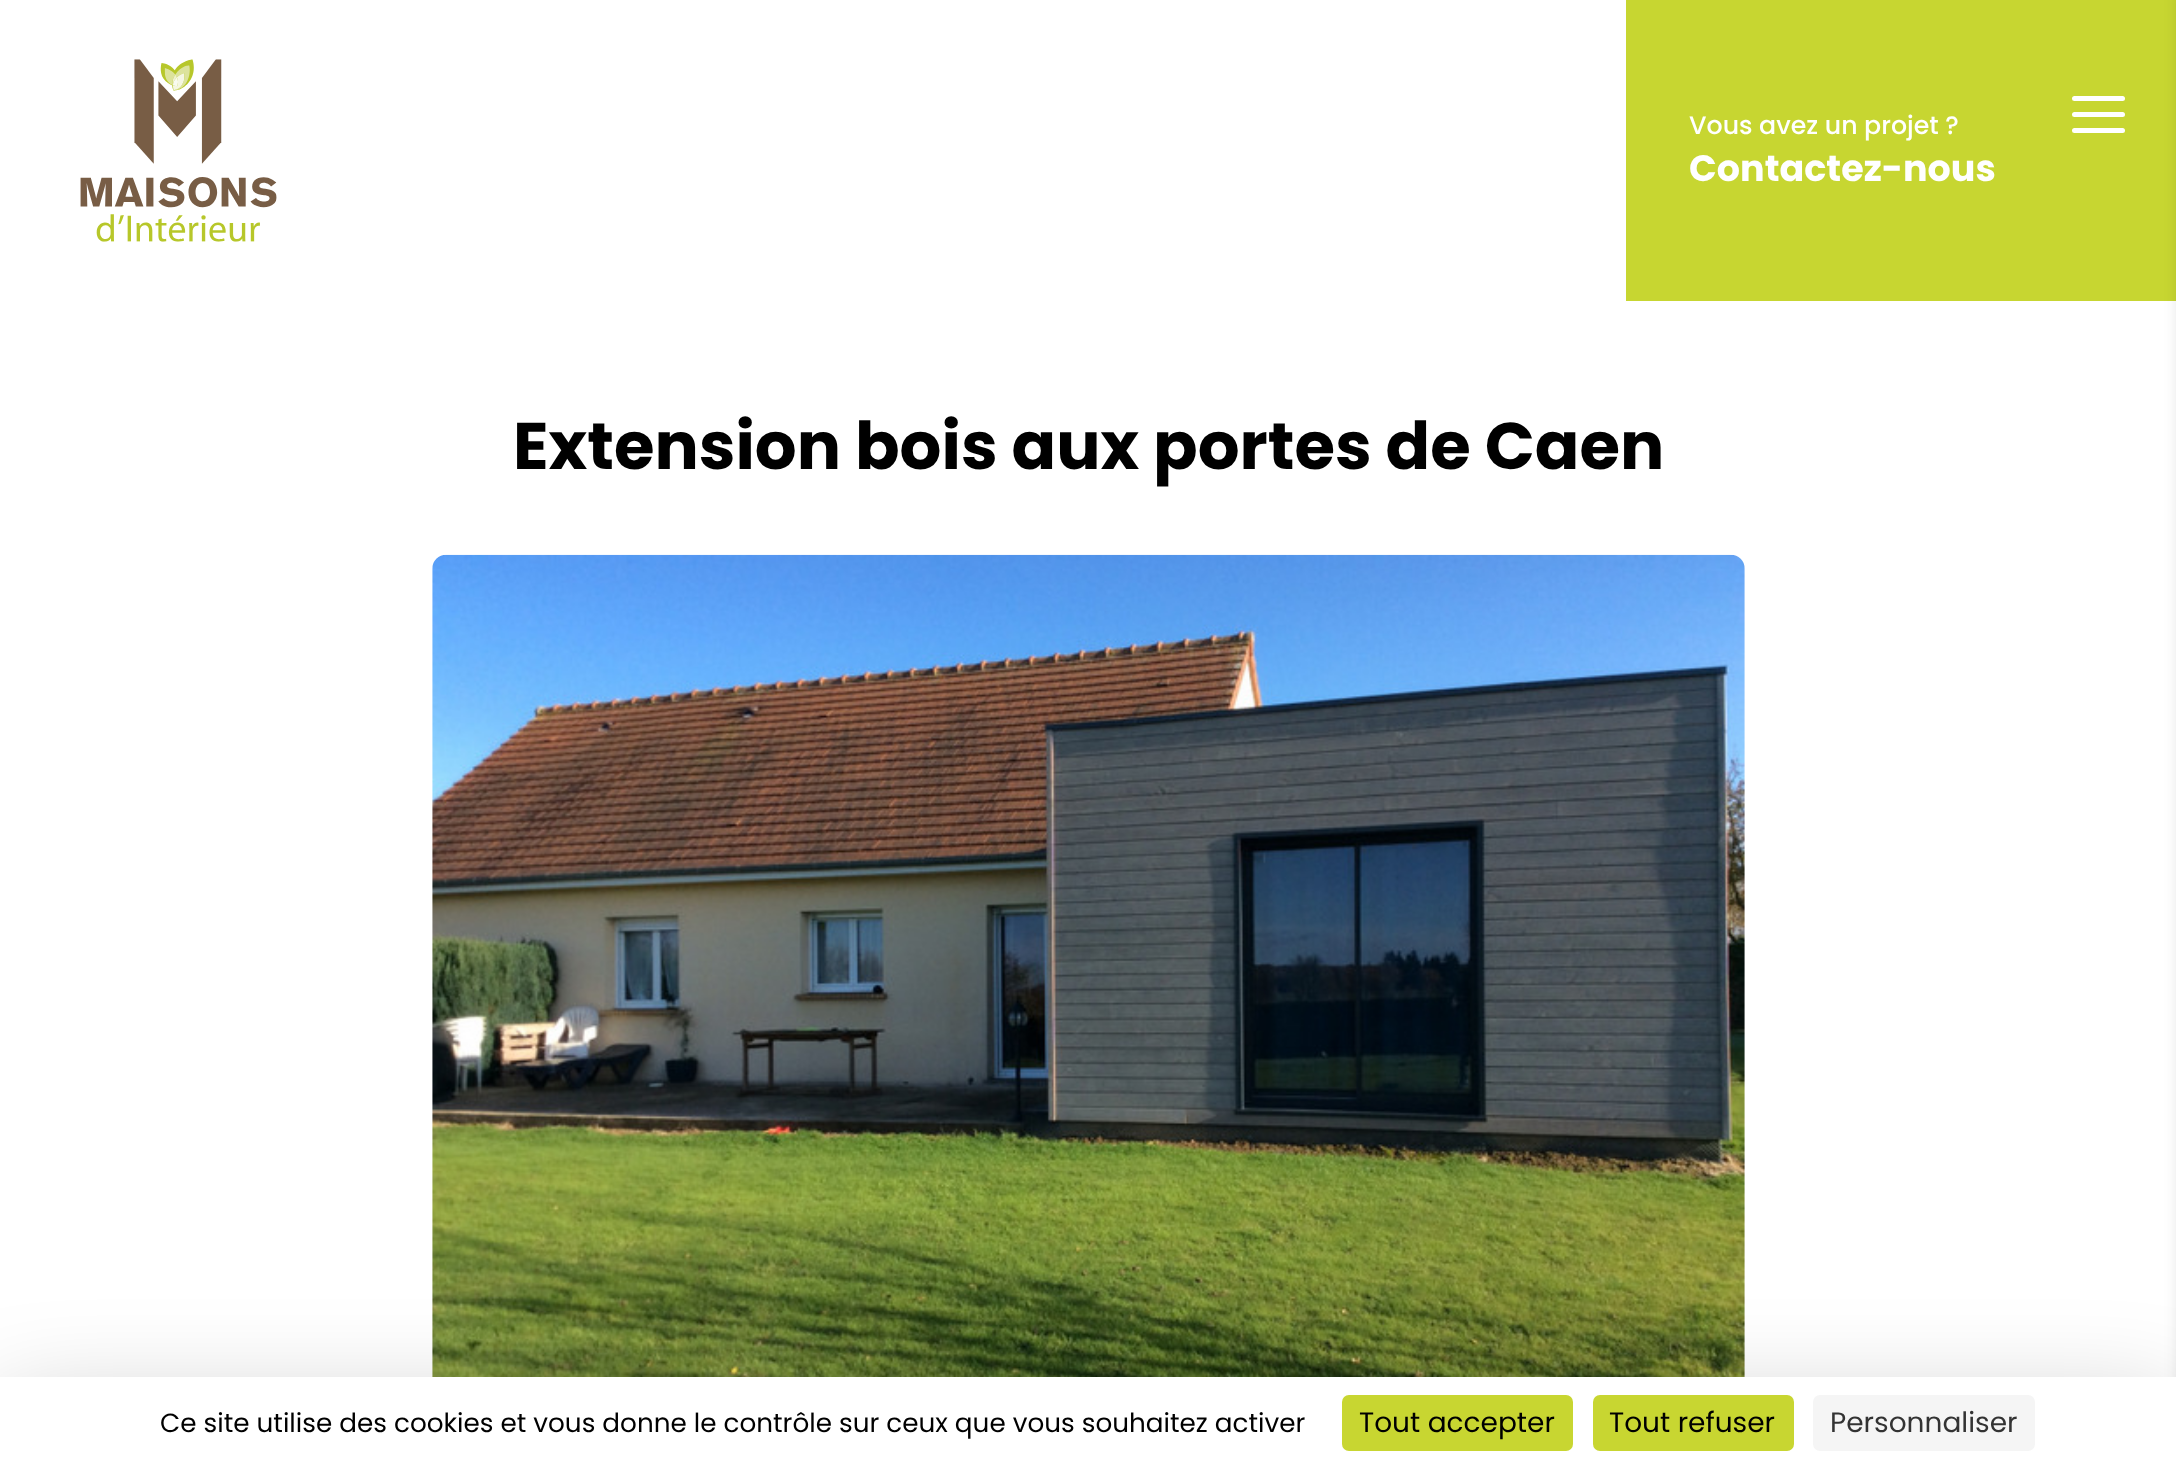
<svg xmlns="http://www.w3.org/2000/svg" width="2176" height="1468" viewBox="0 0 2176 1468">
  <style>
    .t1 { font: 500 25.25px Poppins; fill: #fff; }
    .t2 { font: bold 36.5px Poppins; fill: #fff; }
    .t3 { font: bold 65.75px Poppins; fill: #000; }
    .t4 { font: 26.25px Poppins; fill: #000; }
    .t5 { font: 28px Poppins; fill: #000; }
    .t6 { font: 28px Poppins; fill: #333; }
  </style>
  <rect width="100%" height="100%" fill="#fff"/>
  <image x="80" y="59" width="197" height="183" href="images/1.png"/>
  <rect x="1626" y="0" width="550" height="301" fill="#c7d631"/>
  <text x="1689" y="134" class="t1">Vous avez un projet ?</text>
  <text x="1689" y="181" class="t2">Contactez-nous</text>
  <rect x="2072" y="112" width="53" height="5" rx="2.5" fill="#fff"/>
  <rect x="2072" y="96" width="53" height="5" rx="2.5" fill="#fff"/>
  <rect x="2072" y="128" width="53" height="5" rx="2.5" fill="#fff"/>
  <rect x="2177" y="-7" width="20" height="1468" fill="#0000001a" filter="blur(7px)"/>
  <text x="513" y="469" class="t3">Extension bois aux portes de Caen</text>
  <image x="432" y="554" width="1313" height="823" href="images/2.png"/>
  <rect x="0" y="1412" width="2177" height="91" fill="#00000040" filter="blur(52.5px)"/>
  <rect x="0" y="1377" width="2176" height="91" fill="#fff"/>
  <text x="160" y="1432" class="t4">Ce site utilise des cookies et vous donne le contrôle sur ceux que vous souhaitez activer</text>
  <rect x="1342" y="1395" width="231" height="56" rx="7" fill="#c8d631"/>
  <text x="1359" y="1432" class="t5">Tout accepter</text>
  <rect x="1593" y="1395" width="201" height="56" rx="7" fill="#c8d631"/>
  <text x="1609" y="1432" class="t5">Tout refuser</text>
  <rect x="1813" y="1395" width="222" height="56" rx="7" fill="#f5f5f5"/>
  <text x="1830" y="1432" class="t6">Personnaliser</text>
</svg>
